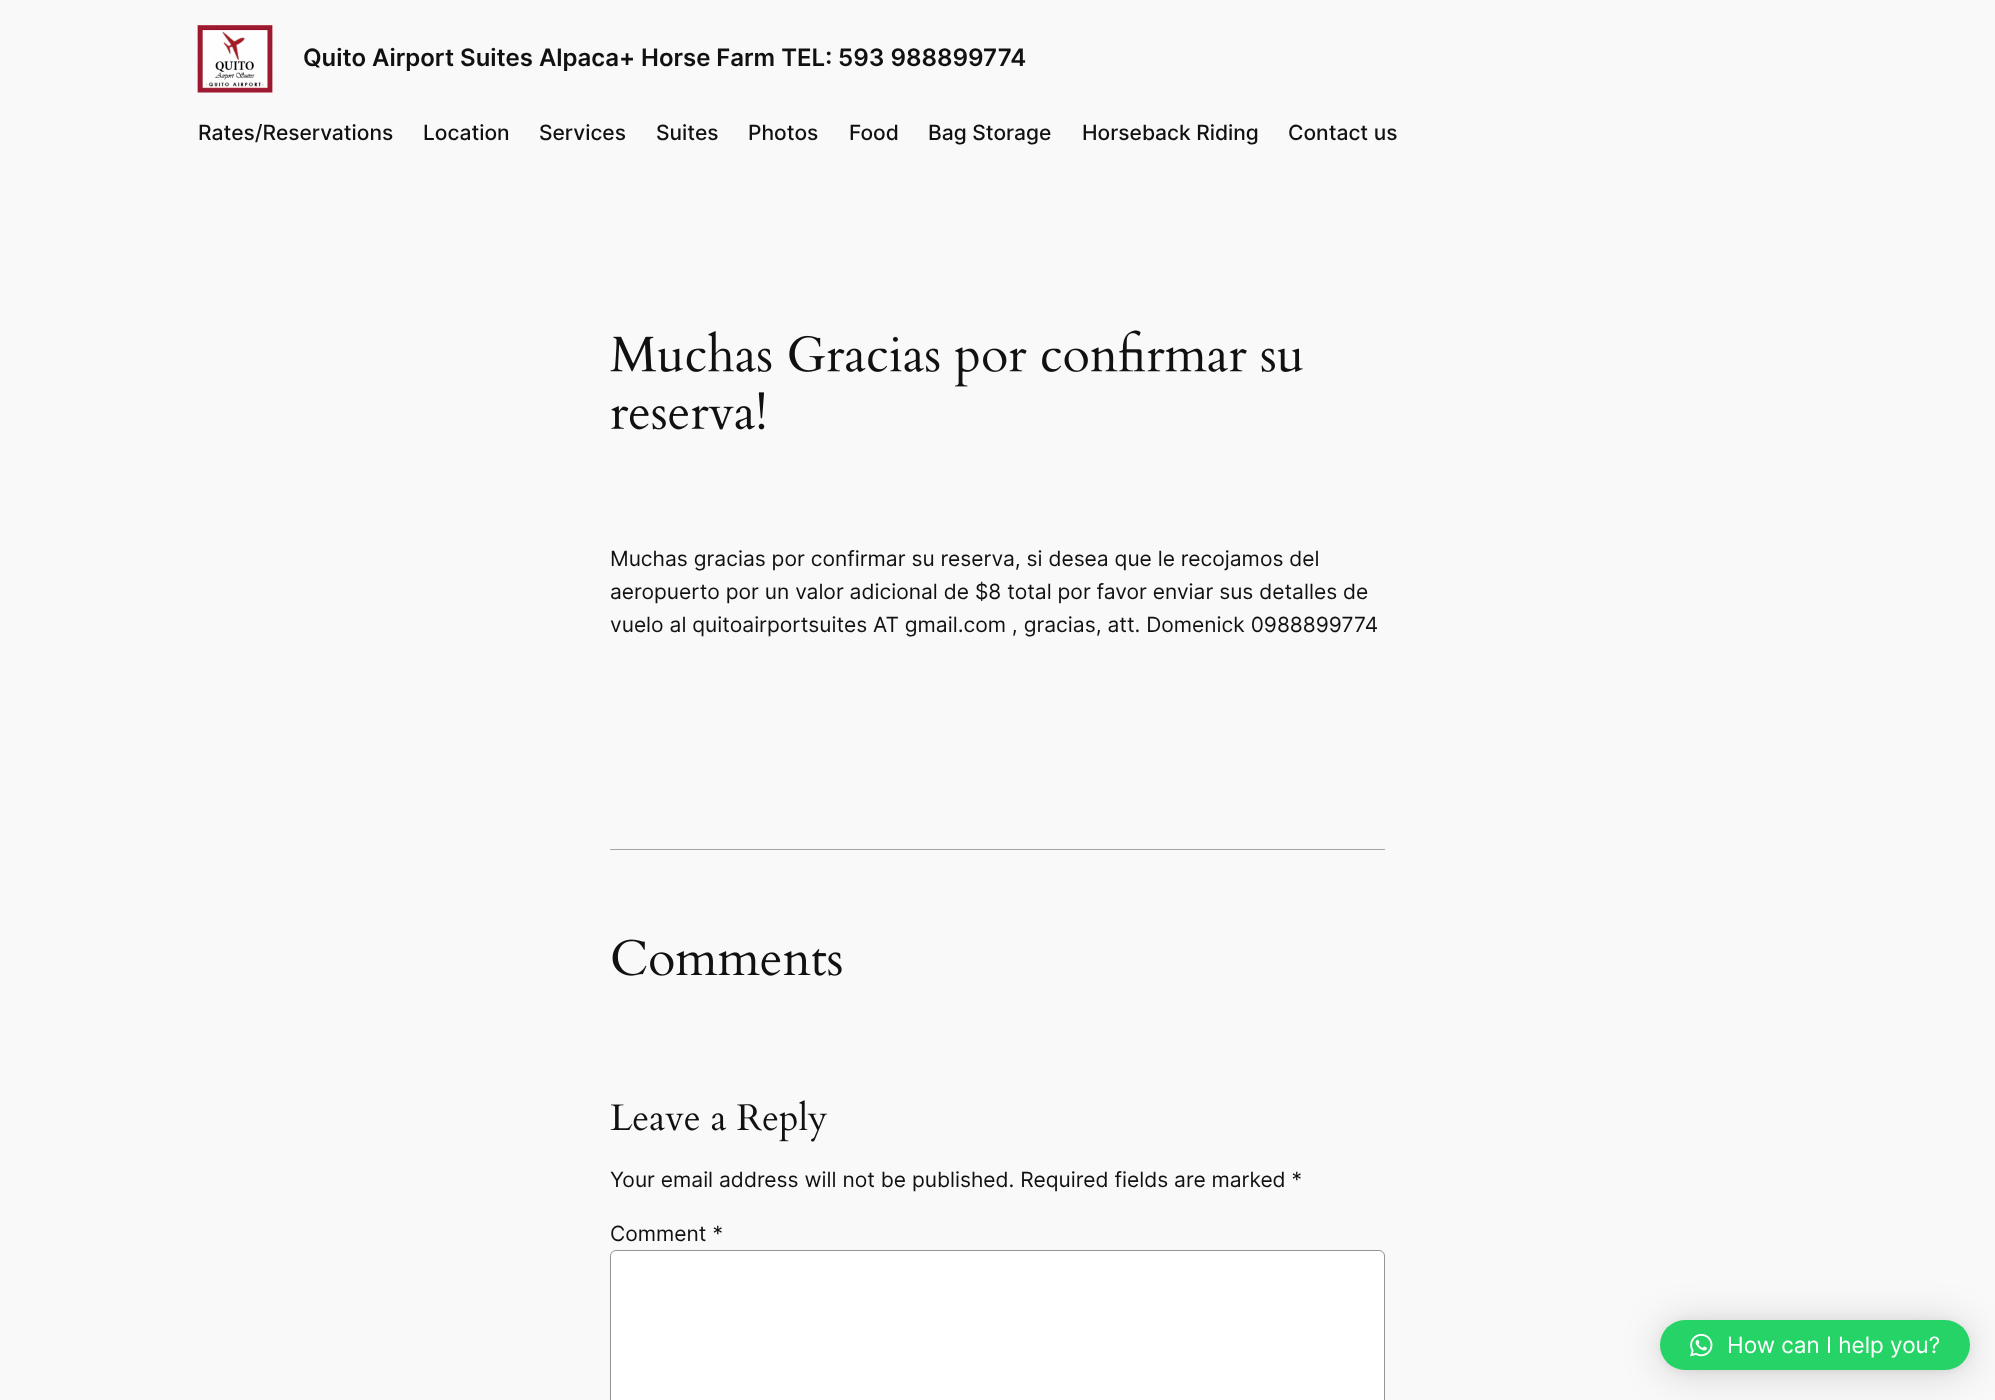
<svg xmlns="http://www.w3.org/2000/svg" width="1995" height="1400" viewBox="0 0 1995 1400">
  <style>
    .t1 { font: 600 24px Inter; fill: #111; }
    .t2 { font: 500 21px Inter; fill: #111; }
    .t3 { font: 21px Inter; fill: #111; }
    .t4 { font: 22.5px Inter; fill: #fff; }
  </style>
  <rect width="100%" height="100%" fill="#f9f9f9"/>
  <image x="197" y="25" width="76" height="68" href="images/1.png"/>
  <text x="303" y="66" class="t1">Quito Airport Suites Alpaca+ Horse Farm TEL: 593 988899774</text>
  <text x="198" y="140" class="t2">Rates/Reservations</text>
  <text x="423" y="140" class="t2">Location</text>
  <text x="539" y="140" class="t2">Services</text>
  <text x="656" y="140" class="t2">Suites</text>
  <text x="748" y="140" class="t2">Photos</text>
  <text x="849" y="140" class="t2">Food</text>
  <text x="928" y="140" class="t2">Bag Storage</text>
  <text x="1082" y="140" class="t2">Horseback Riding</text>
  <text x="1288" y="140" class="t2">Contact us</text>
  <image x="610" y="330" width="693" height="57" href="images/2.png"/>
  <image x="611" y="392" width="154" height="38" href="images/3.png"/>
  <text x="610" y="566" class="t3">Muchas gracias por confirmar su reserva, si desea que le recojamos del</text>
  <text x="610" y="599" class="t3">aeropuerto por un valor adicional de $8 total por favor enviar sus detalles de</text>
  <text x="610" y="632" class="t3">vuelo al quitoairportsuites AT gmail.com , gracias, att. Domenick 0988899774</text>
  <rect x="610" y="849" width="775" height="1" fill="#a4a4a4"/>
  <image x="612" y="939" width="230" height="37" href="images/4.png"/>
  <image x="610" y="1100" width="218" height="42" href="images/5.png"/>
  <text x="610" y="1187" class="t3">Your email address will not be published. Required fields are marked *</text>
  <text x="610" y="1241" class="t3">Comment *</text>
  <rect x="610.5" y="1250.5" width="774" height="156" rx="5.5" fill="#fff" stroke="#949494"/>
  <rect x="1660" y="1323" width="310" height="50" rx="25" fill="#00000029" filter="blur(20px)"/>
  <rect x="1660" y="1321" width="310" height="50" rx="25" fill="#0000000f" filter="blur(4px)"/>
  <rect x="1660" y="1320" width="310" height="50" rx="25" fill="#25d366"/>
  <image x="1690" y="1333" width="23" height="24" href="images/6.png"/>
  <text x="1727" y="1353" class="t4">How can I help you?</text>
</svg>
